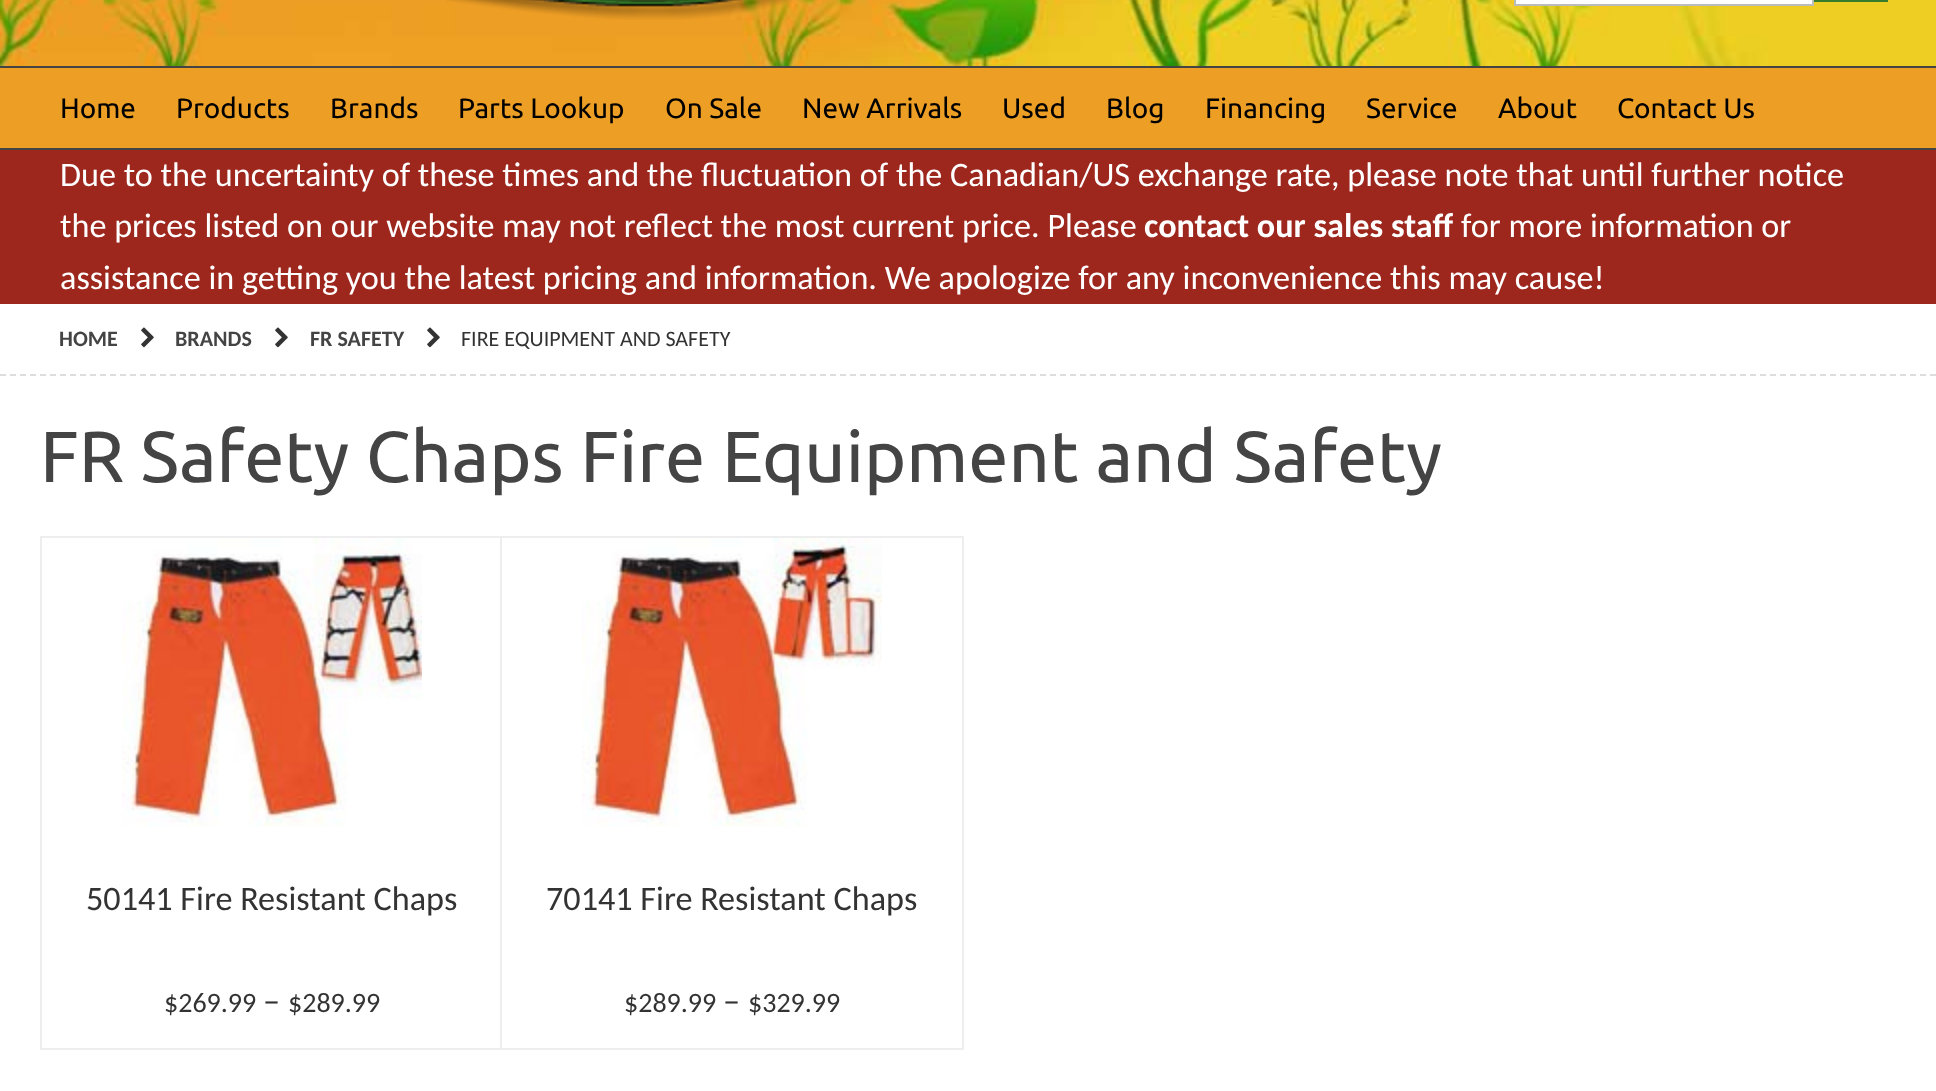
<svg xmlns="http://www.w3.org/2000/svg" width="1936" height="1091" viewBox="0 0 1936 1091">
  <style>
    .t1 { font: 28px Ubuntu; fill: #000; }
    .t2 { font: 34.2px Carlito; fill: #fff; }
    .t3 { font: bold 34.2px Carlito; fill: #fff; }
    .t4 { font: bold 22px Carlito; fill: #444; }
    .t5 { font: 22px Carlito; fill: #333; }
    .t6 { font: 72px Ubuntu; fill: #444; }
    .t7 { font: 34.2px Carlito; fill: #333; }
    .t8 { font: 28px Carlito; fill: #333; }
  </style>
  <rect width="100%" height="100%" fill="#ed9e25"/>
  <image x="0" y="0" width="1936" height="66" href="images/1.png"/>
  <image x="446" y="0" width="346" height="20" href="images/2.png"/>
  <rect x="1515" y="-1" width="298" height="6" fill="#fff" stroke="#bbb" stroke-width="2"/>
  <rect x="1814" y="0" width="74" height="2" fill="#367c2b"/>
  <rect x="0" y="66" width="1936" height="2" fill="#444"/>
  <rect x="0" y="148" width="1936" height="2" fill="#444"/>
  <text x="60" y="118" class="t1">Home</text>
  <text x="176" y="118" class="t1">Products</text>
  <text x="330" y="118" class="t1">Brands</text>
  <text x="458" y="118" class="t1">Parts Lookup</text>
  <text x="665" y="118" class="t1">On Sale</text>
  <text x="802" y="118" class="t1">New Arrivals</text>
  <text x="1002" y="118" class="t1">Used</text>
  <text x="1106" y="118" class="t1">Blog</text>
  <text x="1205" y="118" class="t1">Financing</text>
  <text x="1366" y="118" class="t1">Service</text>
  <text x="1498" y="118" class="t1">About</text>
  <text x="1617" y="118" class="t1">Contact Us</text>
  <rect x="0" y="150" width="1936" height="154" fill="#9d261d"/>
  <text x="60" y="186" class="t2">Due to the uncertainty of these times and the fluctuation of the Canadian/US exchange rate, please note that until further notice</text>
  <text x="60" y="237" class="t2">the prices listed on our website may not reflect the most current price. Please</text>
  <text x="1144" y="237" class="t3">contact our sales staff</text>
  <text x="1461" y="237" class="t2">for more information or</text>
  <text x="60" y="289" class="t2">assistance in getting you the latest pricing and information. We apologize for any inconvenience this may cause!</text>
  <rect x="0" y="304" width="1936" height="787" fill="#fff"/>
  <path d="M0 375H1936" fill="none" stroke="#ddd" stroke-width="2" stroke-dasharray="6 4"/>
  <text x="59" y="346" class="t4">HOME</text>
  <image x="141" y="327" width="13" height="21" href="images/3.png"/>
  <text x="175" y="346" class="t4">BRANDS</text>
  <image x="275" y="327" width="13" height="21" href="images/3.png"/>
  <text x="310" y="346" class="t4">FR SAFETY</text>
  <image x="427" y="327" width="13" height="21" href="images/3.png"/>
  <text x="461" y="346" class="t5">FIRE EQUIPMENT AND SAFETY</text>
  <text x="40" y="482" class="t6">FR Safety Chaps Fire Equipment and Safety</text>
  <rect x="41" y="537" width="462" height="512" fill="none" stroke="#eee" stroke-width="2"/>
  <image x="122" y="538" width="300" height="289" href="images/4.png"/>
  <text x="86" y="910" class="t7">50141 Fire Resistant Chaps</text>
  <text x="164" y="1012" class="t8">$269.99</text>
  <text x="263" y="1012" class="t7">–</text>
  <text x="288" y="1012" class="t8">$289.99</text>
  <rect x="502" y="538" width="2" height="510" fill="#fff"/>
  <rect x="501" y="537" width="462" height="512" fill="none" stroke="#eee" stroke-width="2"/>
  <image x="582" y="538" width="300" height="289" href="images/5.png"/>
  <text x="546" y="910" class="t7">70141 Fire Resistant Chaps</text>
  <text x="624" y="1012" class="t8">$289.99</text>
  <text x="723" y="1012" class="t7">–</text>
  <text x="748" y="1012" class="t8">$329.99</text>
</svg>
